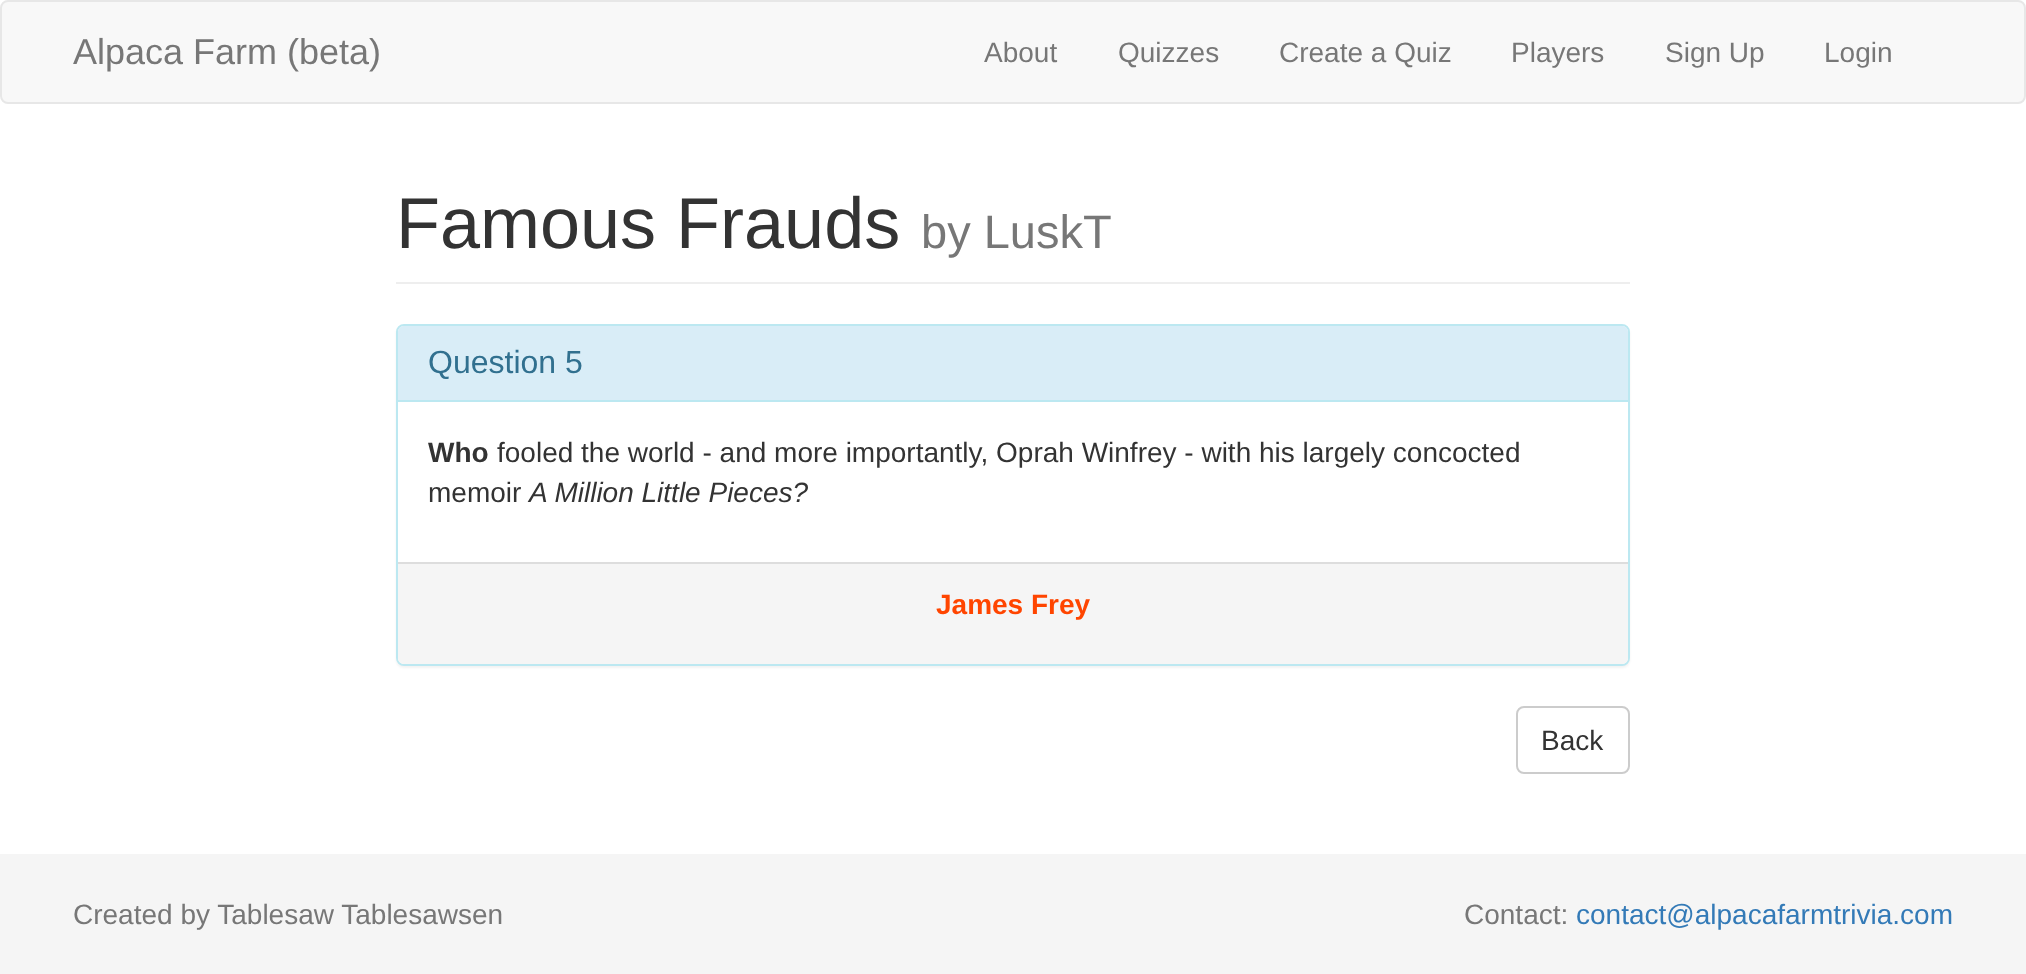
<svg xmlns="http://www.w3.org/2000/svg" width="2026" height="974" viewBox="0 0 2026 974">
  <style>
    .t1 { font: 36px Liberation Sans; fill: #777; }
    .t2 { font: 28px Liberation Sans; fill: #777; }
    .t3 { font: 72px Liberation Sans; fill: #333; }
    .t4 { font: 47px Liberation Sans; fill: #777; }
    .t5 { font: 32px Liberation Sans; fill: #31708f; }
    .t6 { font: bold 28px Liberation Sans; fill: #333; }
    .t7 { font: 28px Liberation Sans; fill: #333; }
    .t8 { font: italic 28px Liberation Sans; fill: #333; }
    .t9 { font: bold 28px Liberation Sans; fill: #ff4500; }
    .t10 { font: 28px Liberation Sans; fill: #337ab7; }
  </style>
  <rect width="100%" height="100%" fill="#fff"/>
  <rect x="1" y="1" width="2024" height="102" rx="7" fill="#f8f8f8" stroke="#e7e7e7" stroke-width="2"/>
  <text x="73" y="64" class="t1">Alpaca Farm (beta)</text>
  <text x="984" y="62" class="t2">About</text>
  <text x="1118" y="62" class="t2">Quizzes</text>
  <text x="1279" y="62" class="t2">Create a Quiz</text>
  <text x="1511" y="62" class="t2">Players</text>
  <text x="1665" y="62" class="t2">Sign Up</text>
  <text x="1824" y="62" class="t2">Login</text>
  <rect x="396" y="282" width="1234" height="2" fill="#eee"/>
  <text x="396" y="248" class="t3">Famous Frauds</text>
  <text x="921" y="248" class="t4">by LuskT</text>
  <rect x="396" y="326" width="1234" height="342" rx="8" fill="#0000000d" filter="blur(1px)"/>
  <rect x="397" y="325" width="1232" height="340" rx="7" fill="#fff" stroke="#bce8f1" stroke-width="2"/>
  <path d="M404 326H1622C1625.5 326 1628 328.5 1628 332V402H398V332C398 328.5 400.5 326 404 326Z" fill="#d9edf7"/>
  <rect x="398" y="400" width="1230" height="2" fill="#bce8f1"/>
  <text x="428" y="373" class="t5">Question 5</text>
  <text x="428" y="462" class="t6">Who</text>
  <text x="497" y="462" class="t7">fooled the world - and more importantly, Oprah Winfrey - with his largely concocted</text>
  <text x="428" y="502" class="t7">memoir</text>
  <text x="529" y="502" class="t8">A Million Little Pieces?</text>
  <path d="M398 562H1628V658C1628 661.5 1625.5 664 1622 664H404C400.5 664 398 661.5 398 658Z" fill="#f5f5f5"/>
  <rect x="398" y="562" width="1230" height="2" fill="#ddd"/>
  <text x="936" y="614" class="t9">James Frey</text>
  <rect x="1517" y="707" width="112" height="66" rx="7" fill="none" stroke="#ccc" stroke-width="2"/>
  <text x="1541" y="750" class="t7">Back</text>
  <rect x="0" y="854" width="2026" height="120" fill="#f5f5f5"/>
  <text x="73" y="924" class="t2">Created by Tablesaw Tablesawsen</text>
  <text x="1464" y="924" class="t2">Contact:</text>
  <text x="1576" y="924" class="t10">contact@alpacafarmtrivia.com</text>
</svg>
